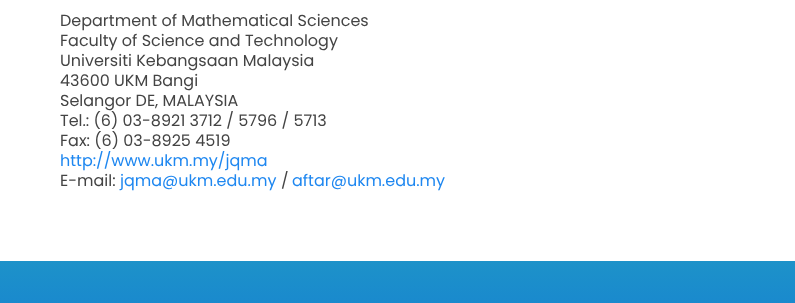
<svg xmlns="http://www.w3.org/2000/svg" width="795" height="303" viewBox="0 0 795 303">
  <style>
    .t1 { font: 16px Poppins; fill: #444; }
    .t2 { font: 16px Poppins; fill: #1e87f0; }
  </style>
  <defs>
    <linearGradient id="g1" gradientUnits="userSpaceOnUse" x1="398" y1="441" x2="398" y2="261"><stop offset="0" stop-color="#0e6edc"/><stop offset="1" stop-color="#1d92c9"/></linearGradient>
  </defs>
  <rect width="100%" height="100%" fill="#fff"/>
  <text x="60" y="26" class="t1">Department of Mathematical Sciences</text>
  <text x="60" y="46" class="t1">Faculty of Science and Technology</text>
  <text x="60" y="66" class="t1">Universiti Kebangsaan Malaysia</text>
  <text x="60" y="86" class="t1">43600 UKM Bangi</text>
  <text x="60" y="106" class="t1">Selangor DE, MALAYSIA</text>
  <text x="60" y="126" class="t1">Tel.: (6) 03-8921 3712 / 5796 / 5713</text>
  <text x="60" y="146" class="t1">Fax: (6) 03-8925 4519</text>
  <text x="60" y="166" class="t2">http://www.ukm.my/jqma</text>
  <text x="60" y="186" class="t1">E-mail:</text>
  <text x="120" y="186" class="t2">jqma@ukm.edu.my</text>
  <text x="281" y="186" class="t1">/</text>
  <text x="292" y="186" class="t2">aftar@ukm.edu.my</text>
  <rect x="0" y="261" width="795" height="42" fill="url(#g1)"/>
</svg>
